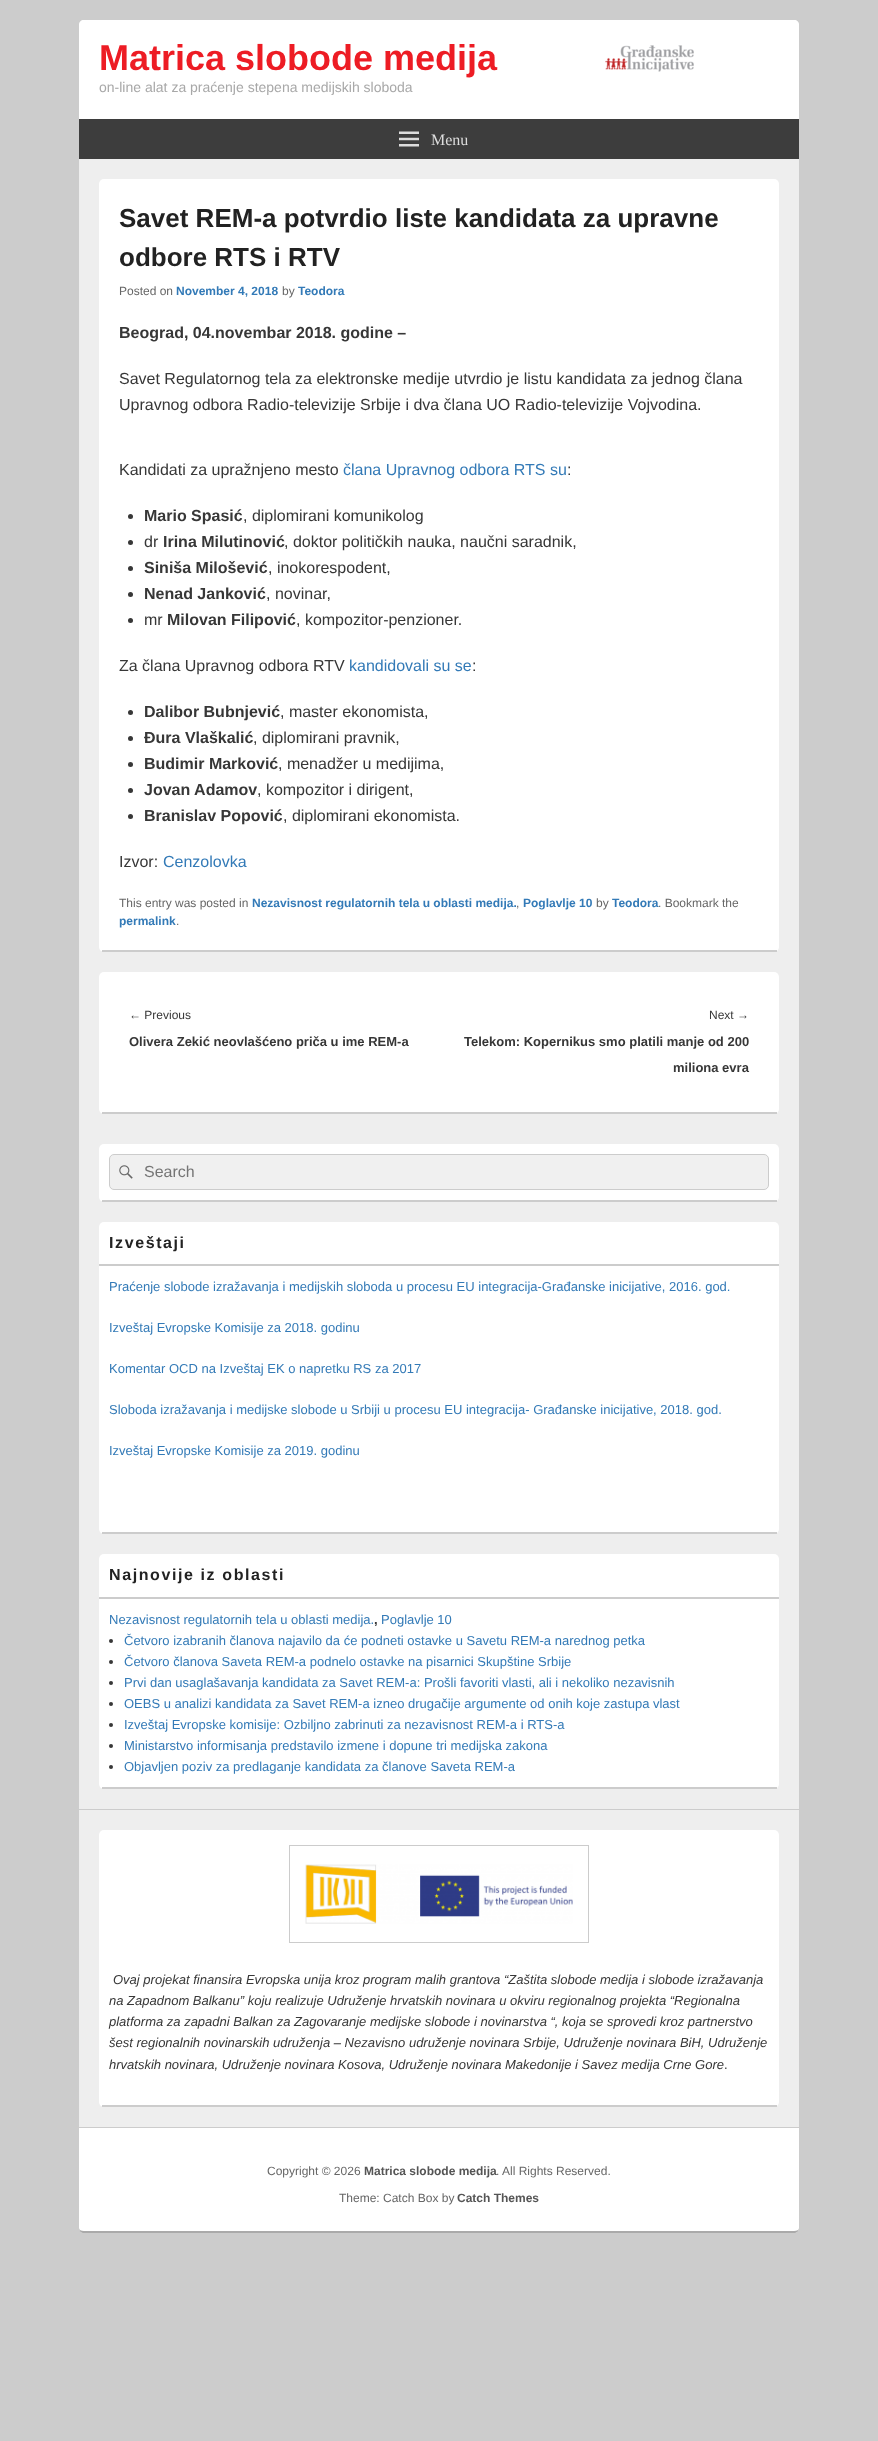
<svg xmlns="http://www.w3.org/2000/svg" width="878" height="2441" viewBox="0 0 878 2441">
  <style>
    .t1 { font: bold 36px Liberation Sans; fill: #ed1c24; }
    .t2 { font: 14px Liberation Sans; fill: #a8a8a8; }
    .t3 { font: 16px Liberation Serif; fill: #ddd; }
    .t4 { font: bold 26px Liberation Sans; fill: #222; }
    .t5 { font: 12px Liberation Sans; fill: #666; }
    .t6 { font: bold 12px Liberation Sans; fill: #337ab7; }
    .t7 { font: bold 16px Liberation Sans; fill: #373737; }
    .t8 { font: 16px Liberation Sans; fill: #373737; }
    .t9 { font: 16px Liberation Sans; fill: #337ab7; }
    .t10 { font: 12px Liberation Sans; fill: #373737; }
    .t11 { font: bold 13px Liberation Sans; fill: #373737; }
    .t12 { font: 16px Liberation Sans; fill: #757575; }
    .t13 { font: bold 16px Liberation Sans; letter-spacing: 1.6px; fill: #222; }
    .t14 { font: 13px Liberation Sans; fill: #337ab7; }
    .t15 { font: italic 13px Liberation Sans; fill: #373737; }
    .t16 { font: 13px Liberation Sans; fill: #373737; }
    .t17 { font: bold 12px Liberation Sans; fill: #555; }
  </style>
  <rect width="100%" height="100%" fill="#ccc"/>
  <rect x="79" y="20" width="720" height="2213" rx="5" fill="#eee"/>
  <path d="M84 20H794C797 20 799 22 799 25V159H79V25C79 22 81 20 84 20Z" fill="#fff"/>
  <text x="99" y="70" class="t1">Matrica slobode medija</text>
  <text x="99" y="92" class="t2">on-line alat za praćenje stepena medijskih sloboda</text>
  <image x="605" y="45" width="89" height="27" href="images/1.png"/>
  <rect x="79" y="119" width="720" height="40" fill="#3d3d3d"/>
  <image x="399" y="131" width="20" height="16" href="images/2.png"/>
  <text x="431" y="145" class="t3">Menu</text>
  <rect x="99" y="179" width="680" height="773" rx="5" fill="#fff"/>
  <rect x="102" y="950" width="675" height="2" fill="#ccc"/>
  <text x="119" y="227" class="t4">Savet REM-a potvrdio liste kandidata za upravne</text>
  <text x="119" y="266" class="t4">odbore RTS i RTV</text>
  <text x="119" y="295" class="t5">Posted on</text>
  <text x="176" y="295" class="t6">November 4, 2018</text>
  <text x="282" y="295" class="t5">by</text>
  <text x="298" y="295" class="t6">Teodora</text>
  <text x="119" y="338" class="t7">Beograd, 04.novembar 2018. godine –</text>
  <text x="119" y="384" class="t8">Savet Regulatornog tela za elektronske medije utvrdio je listu kandidata za jednog člana</text>
  <text x="119" y="410" class="t8">Upravnog odbora Radio-televizije Srbije i dva člana UO Radio-televizije Vojvodina.</text>
  <text x="119" y="475" class="t8">Kandidati za upražnjeno mesto</text>
  <text x="343" y="475" class="t9">člana Upravnog odbora RTS su</text>
  <text x="567" y="475" class="t8">:</text>
  <circle cx="130.5" cy="516.5" r="2.5" fill="#373737"/>
  <text x="144" y="521" class="t7">Mario Spasić</text>
  <text x="243" y="521" class="t8">, diplomirani komunikolog</text>
  <circle cx="130.5" cy="542.5" r="2.5" fill="#373737"/>
  <text x="144" y="547" class="t8">dr</text>
  <text x="163" y="547" class="t7">Irina Milutinović</text>
  <text x="284" y="547" class="t8">, doktor političkih nauka, naučni saradnik,</text>
  <circle cx="130.5" cy="568.5" r="2.5" fill="#373737"/>
  <text x="144" y="573" class="t7">Siniša Milošević</text>
  <text x="268" y="573" class="t8">, inokorespodent,</text>
  <circle cx="130.5" cy="594.5" r="2.5" fill="#373737"/>
  <text x="144" y="599" class="t7">Nenad Janković</text>
  <text x="266" y="599" class="t8">, novinar,</text>
  <circle cx="130.5" cy="620.5" r="2.5" fill="#373737"/>
  <text x="144" y="625" class="t8">mr</text>
  <text x="167" y="625" class="t7">Milovan Filipović</text>
  <text x="296" y="625" class="t8">, kompozitor-penzioner.</text>
  <text x="119" y="671" class="t8">Za člana Upravnog odbora RTV</text>
  <text x="349" y="671" class="t9">kandidovali su se</text>
  <text x="472" y="671" class="t8">:</text>
  <circle cx="130.5" cy="712.5" r="2.5" fill="#373737"/>
  <text x="144" y="717" class="t7">Dalibor Bubnjević</text>
  <text x="280" y="717" class="t8">, master ekonomista,</text>
  <circle cx="130.5" cy="738.5" r="2.5" fill="#373737"/>
  <text x="144" y="743" class="t7">Đura Vlaškalić</text>
  <text x="253" y="743" class="t8">, diplomirani pravnik,</text>
  <circle cx="130.5" cy="764.5" r="2.5" fill="#373737"/>
  <text x="144" y="769" class="t7">Budimir Marković</text>
  <text x="278" y="769" class="t8">, menadžer u medijima,</text>
  <circle cx="130.5" cy="790.5" r="2.5" fill="#373737"/>
  <text x="144" y="795" class="t7">Jovan Adamov</text>
  <text x="257" y="795" class="t8">, kompozitor i dirigent,</text>
  <circle cx="130.5" cy="816.5" r="2.5" fill="#373737"/>
  <text x="144" y="821" class="t7">Branislav Popović</text>
  <text x="283" y="821" class="t8">, diplomirani ekonomista.</text>
  <text x="119" y="867" class="t8">Izvor:</text>
  <text x="163" y="867" class="t9">Cenzolovka</text>
  <text x="119" y="907" class="t5">This entry was posted in</text>
  <text x="252" y="907" class="t6">Nezavisnost regulatornih tela u oblasti medija.</text>
  <text x="516" y="907" class="t5">,</text>
  <text x="523" y="907" class="t6">Poglavlje 10</text>
  <text x="596" y="907" class="t5">by</text>
  <text x="612" y="907" class="t6">Teodora</text>
  <text x="658" y="907" class="t5">. Bookmark the</text>
  <text x="119" y="925" class="t6">permalink</text>
  <text x="176" y="925" class="t5">.</text>
  <rect x="99" y="972" width="680" height="142" rx="5" fill="#fff"/>
  <rect x="102" y="1112" width="675" height="2" fill="#ccc"/>
  <text x="129" y="1019" class="t10">← Previous</text>
  <text x="129" y="1046" class="t11">Olivera Zekić neovlašćeno priča u ime REM-a</text>
  <text x="709" y="1019" class="t10">Next →</text>
  <text x="464" y="1046" class="t11">Telekom: Kopernikus smo platili manje od 200</text>
  <text x="673" y="1072" class="t11">miliona evra</text>
  <rect x="99" y="1144" width="680" height="58" rx="5" fill="#fff"/>
  <rect x="102" y="1200" width="675" height="2" fill="#ccc"/>
  <rect x="109.5" y="1154.5" width="659" height="35" rx="4.5" fill="#f0f0f0" stroke="#ccc"/>
  <image x="119" y="1165" width="14" height="14" href="images/3.png"/>
  <text x="144" y="1177" class="t12">Search</text>
  <rect x="99" y="1222" width="680" height="312" rx="5" fill="#fff"/>
  <rect x="102" y="1532" width="675" height="2" fill="#ccc"/>
  <rect x="99" y="1264" width="680" height="2" fill="#ccc"/>
  <text x="109" y="1248" class="t13">Izveštaji</text>
  <text x="109" y="1291" class="t14">Praćenje slobode izražavanja i medijskih sloboda u procesu EU integracija-Građanske inicijative, 2016. god.</text>
  <text x="109" y="1332" class="t14">Izveštaj Evropske Komisije za 2018. godinu</text>
  <text x="109" y="1373" class="t14">Komentar OCD na Izveštaj EK o napretku RS za 2017</text>
  <text x="109" y="1414" class="t14">Sloboda izražavanja i medijske slobode u Srbiji u procesu EU integracija- Građanske inicijative, 2018. god.</text>
  <text x="109" y="1455" class="t14">Izveštaj Evropske Komisije za 2019. godinu</text>
  <rect x="99" y="1554" width="680" height="235" rx="5" fill="#fff"/>
  <rect x="102" y="1787" width="675" height="2" fill="#ccc"/>
  <rect x="99" y="1597" width="680" height="2" fill="#ccc"/>
  <text x="109" y="1580" class="t13">Najnovije iz oblasti</text>
  <text x="109" y="1624" class="t14">Nezavisnost regulatornih tela u oblasti medija.</text>
  <text x="374" y="1624" class="t11">,</text>
  <text x="381" y="1624" class="t14">Poglavlje 10</text>
  <circle cx="111" cy="1641" r="2" fill="#373737"/>
  <text x="124" y="1645" class="t14">Četvoro izabranih članova najavilo da će podneti ostavke u Savetu REM-a narednog petka</text>
  <circle cx="111" cy="1662" r="2" fill="#373737"/>
  <text x="124" y="1666" class="t14">Četvoro članova Saveta REM-a podnelo ostavke na pisarnici Skupštine Srbije</text>
  <circle cx="111" cy="1683" r="2" fill="#373737"/>
  <text x="124" y="1687" class="t14">Prvi dan usaglašavanja kandidata za Savet REM-a: Prošli favoriti vlasti, ali i nekoliko nezavisnih</text>
  <circle cx="111" cy="1704" r="2" fill="#373737"/>
  <text x="124" y="1708" class="t14">OEBS u analizi kandidata za Savet REM-a izneo drugačije argumente od onih koje zastupa vlast</text>
  <circle cx="111" cy="1725" r="2" fill="#373737"/>
  <text x="124" y="1729" class="t14">Izveštaj Evropske komisije: Ozbiljno zabrinuti za nezavisnost REM-a i RTS-a</text>
  <circle cx="111" cy="1746" r="2" fill="#373737"/>
  <text x="124" y="1750" class="t14">Ministarstvo informisanja predstavilo izmene i dopune tri medijska zakona</text>
  <circle cx="111" cy="1767" r="2" fill="#373737"/>
  <text x="124" y="1771" class="t14">Objavljen poziv za predlaganje kandidata za članove Saveta REM-a</text>
  <rect x="79" y="1809" width="720" height="1" fill="#ccc"/>
  <rect x="99" y="1830" width="680" height="277" rx="5" fill="#fff"/>
  <rect x="102" y="2105" width="675" height="2" fill="#ccc"/>
  <rect x="289.5" y="1845.5" width="299" height="97" fill="none" stroke="#ccc"/>
  <image x="305" y="1864" width="268" height="60" href="images/4.png"/>
  <text x="113" y="1984" class="t15">Ovaj projekat finansira Evropska unija kroz program malih grantova “Zaštita slobode medija i slobode izražavanja</text>
  <text x="109" y="2005" class="t15">na Zapadnom Balkanu” koju realizuje Udruženje hrvatskih novinara u okviru regionalnog projekta “Regionalna</text>
  <text x="109" y="2026" class="t15">platforma za zapadni Balkan za Zagovaranje medijske slobode i novinarstva “, koja se sprovedi kroz partnerstvo</text>
  <text x="109" y="2047" class="t15">šest regionalnih novinarskih udruženja – Nezavisno udruženje novinara Srbije, Udruženje novinara BiH, Udruženje</text>
  <text x="109" y="2069" class="t15">hrvatskih novinara, Udruženje novinara Kosova, Udruženje novinara Makedonije i Savez medija Crne Gore</text>
  <text x="724" y="2069" class="t16">.</text>
  <path d="M79 2127H799V2228C799 2231 797 2233 794 2233H84C81 2233 79 2231 79 2228Z" fill="#fff"/>
  <rect x="79" y="2127" width="720" height="1" fill="#ccc"/>
  <path d="M84 2233H794C797 2233 799 2231 799 2228C799 2230 797 2231 794 2231H84C81 2231 79 2230 79 2228C79 2231 81 2233 84 2233Z" fill="#aaa"/>
  <text x="267" y="2175" class="t5">Copyright © 2026</text>
  <text x="364" y="2175" class="t17">Matrica slobode medija</text>
  <text x="496" y="2175" class="t5">. All Rights Reserved.</text>
  <text x="339" y="2202" class="t5">Theme: Catch Box by</text>
  <text x="457" y="2202" class="t17">Catch Themes</text>
</svg>
